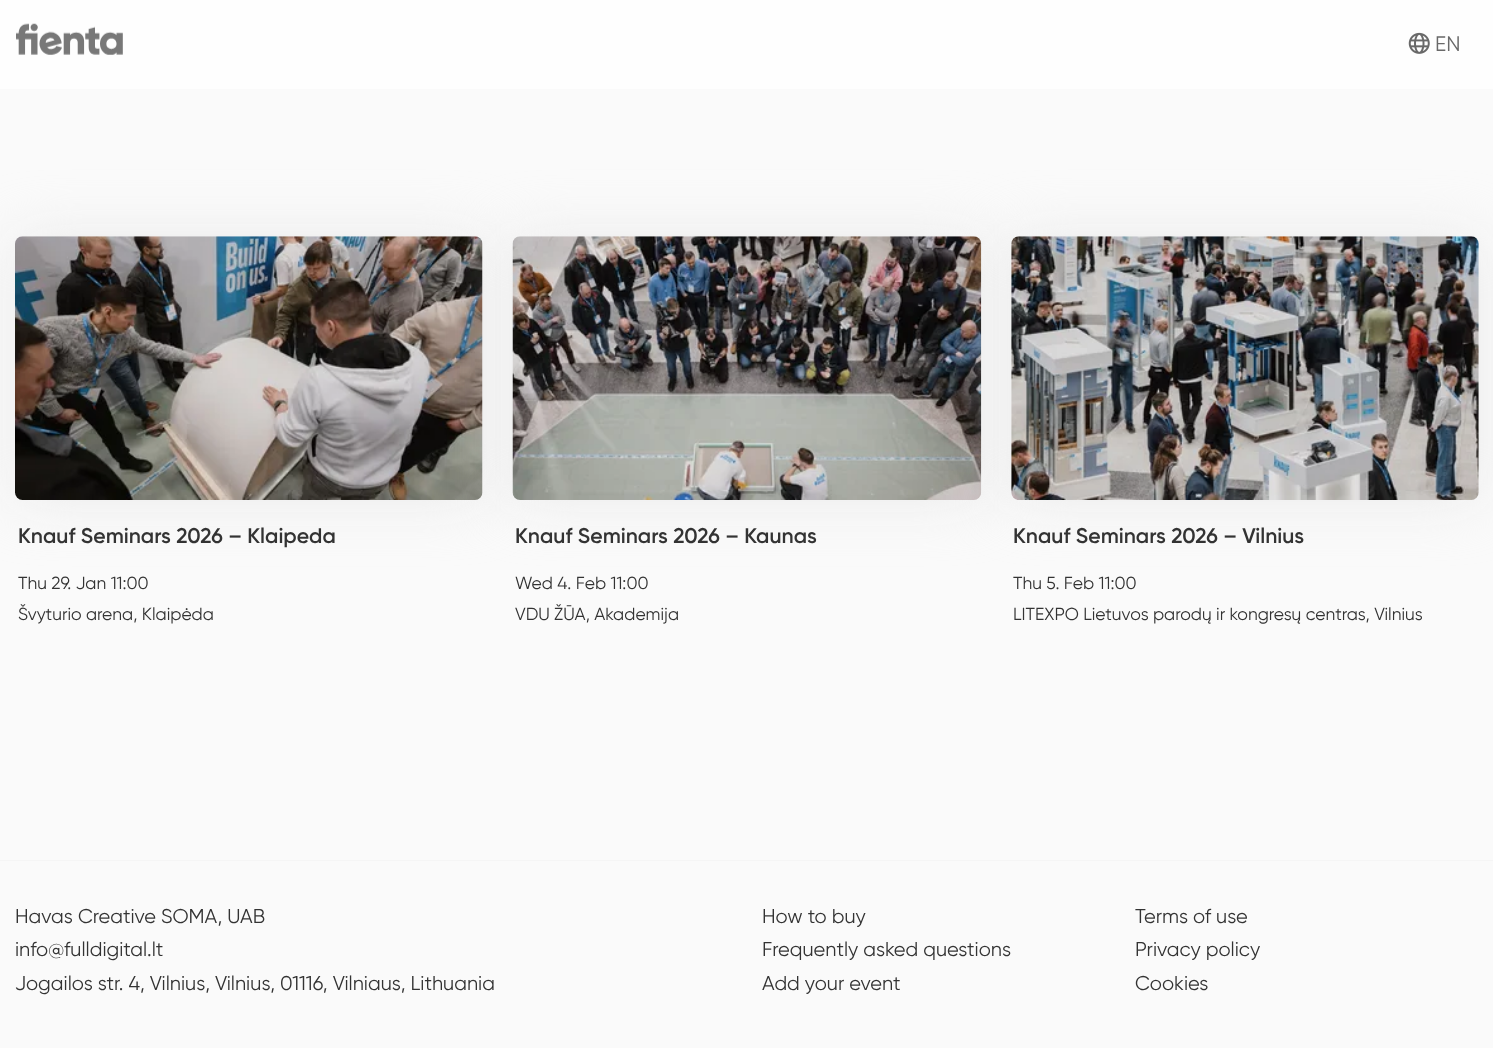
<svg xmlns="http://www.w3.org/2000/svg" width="1493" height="1048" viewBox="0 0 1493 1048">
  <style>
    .t1 { font: 21px Gilroy; fill: #696969; }
    .t2 { font: 600 21.25px Gilroy; fill: #333; }
    .t3 { font: 17.5px Gilroy; fill: #333; }
    .t4 { font: 20px Gilroy; fill: #333; }
  </style>
  <rect width="100%" height="100%" fill="#fafafa"/>
  <rect x="0" y="0" width="1493" height="89" fill="#fefefe"/>
  <image x="16" y="23" width="107" height="32" href="images/1.png"/>
  <image x="1408" y="32" width="22" height="22" href="images/2.png"/>
  <text x="1435" y="51" class="t1">EN</text>
  <rect x="15" y="236" width="468" height="264" rx="8" fill="#ebebeb" filter="blur(27.5px)"/>
  <image x="15" y="236" width="468" height="264" href="images/3.png"/>
  <text x="18" y="543" class="t2">Knauf Seminars 2026 – Klaipeda</text>
  <text x="18" y="589" class="t3">Thu 29. Jan 11:00</text>
  <text x="18" y="620" class="t3">Švyturio arena, Klaipėda</text>
  <rect x="513" y="236" width="468" height="264" rx="8" fill="#ebebeb" filter="blur(27.5px)"/>
  <image x="512" y="236" width="470" height="264" href="images/4.png"/>
  <text x="515" y="543" class="t2">Knauf Seminars 2026 – Kaunas</text>
  <text x="515" y="589" class="t3">Wed 4. Feb 11:00</text>
  <text x="515" y="620" class="t3">VDU ŽŪA, Akademija</text>
  <rect x="1011" y="236" width="468" height="264" rx="8" fill="#ebebeb" filter="blur(27.5px)"/>
  <image x="1011" y="236" width="468" height="264" href="images/5.png"/>
  <text x="1013" y="543" class="t2">Knauf Seminars 2026 – Vilnius</text>
  <text x="1013" y="589" class="t3">Thu 5. Feb 11:00</text>
  <text x="1013" y="620" class="t3">LITEXPO Lietuvos parodų ir kongresų centras, Vilnius</text>
  <rect x="0" y="860" width="1493" height="1" fill="#f5f5f5"/>
  <text x="15" y="923" class="t4">Havas Creative SOMA, UAB</text>
  <text x="15" y="956" class="t4">info@fulldigital.lt</text>
  <text x="15" y="990" class="t4">Jogailos str. 4, Vilnius, Vilnius, 01116, Vilniaus, Lithuania</text>
  <text x="762" y="923" class="t4">How to buy</text>
  <text x="762" y="956" class="t4">Frequently asked questions</text>
  <text x="762" y="990" class="t4">Add your event</text>
  <text x="1135" y="923" class="t4">Terms of use</text>
  <text x="1135" y="956" class="t4">Privacy policy</text>
  <text x="1135" y="990" class="t4">Cookies</text>
</svg>
